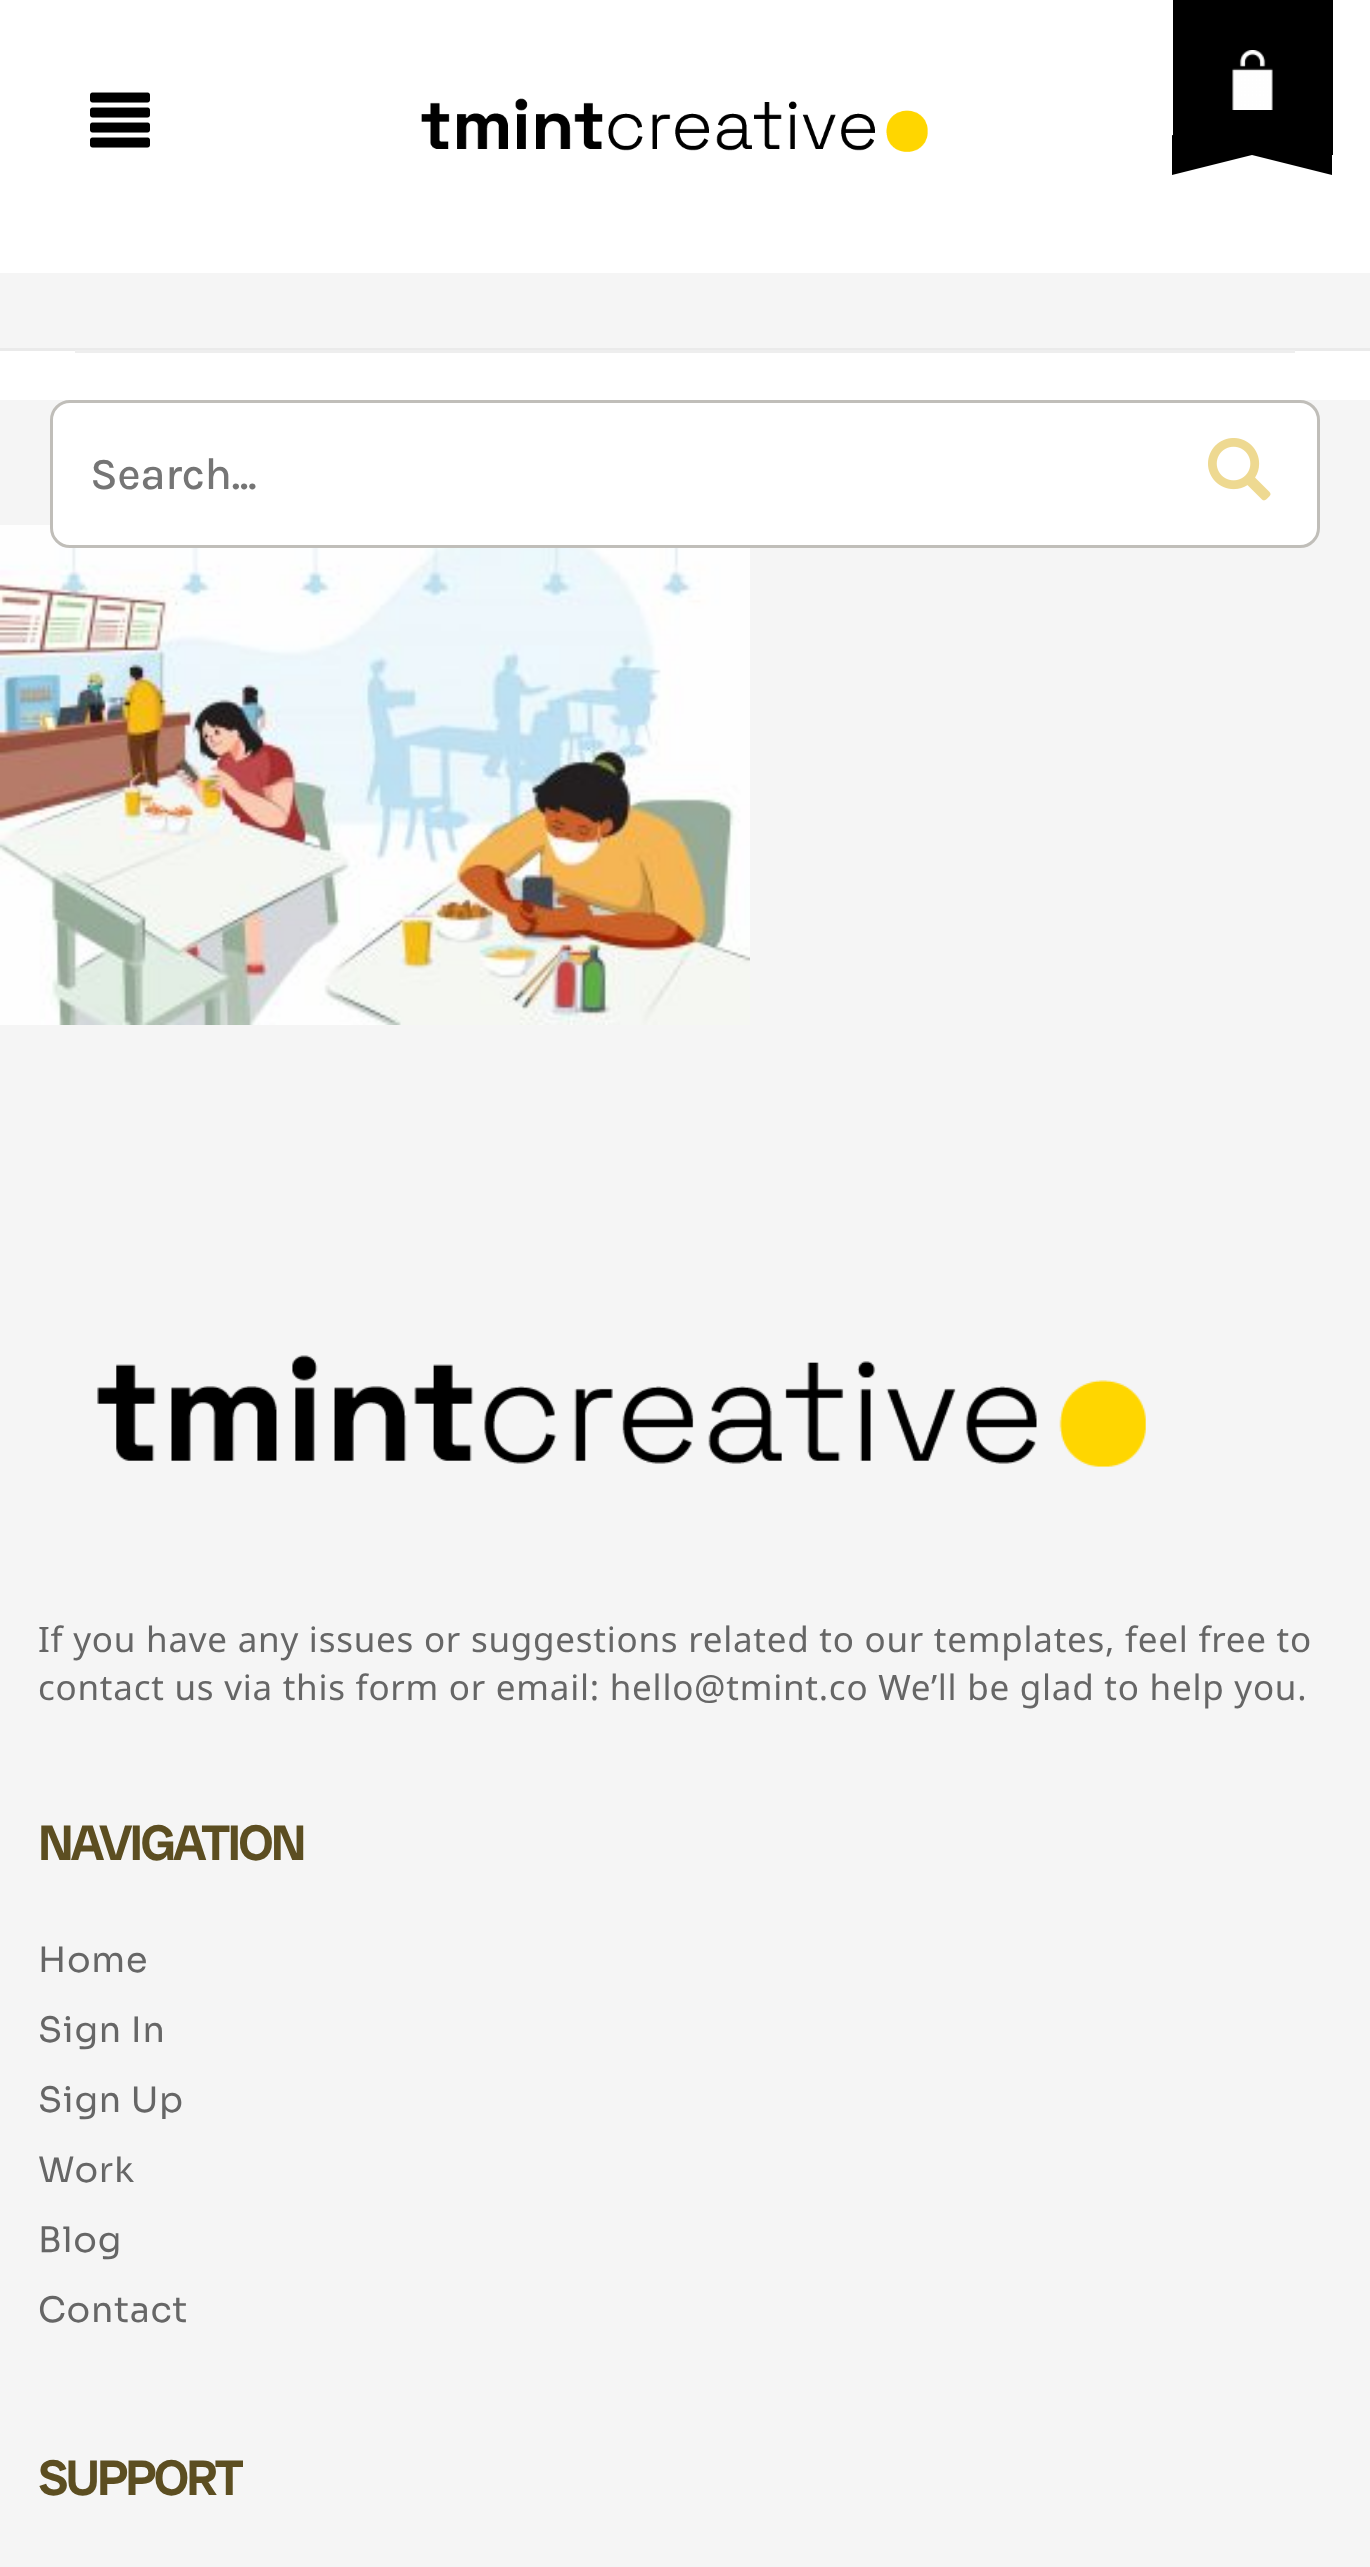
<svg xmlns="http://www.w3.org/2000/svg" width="1370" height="2567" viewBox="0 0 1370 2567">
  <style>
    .t1 { font: 500 45px Karla; letter-spacing: -0.5px; fill: #757575; }
    .t2 { font: 35px Noto Sans; letter-spacing: 0.75px; fill: #666; }
    .t3 { font: 600 50px Radio Canada Big; letter-spacing: -3px; fill: #5c4e21; }
    .t4 { font: 35px Sora; letter-spacing: 0.75px; fill: #666; }
  </style>
  <rect width="100%" height="100%" fill="#f5f5f5"/>
  <rect x="0" y="0" width="1370" height="273" fill="#fff"/>
  <image x="90" y="92" width="60" height="56" href="images/1.png"/>
  <image x="421" y="98" width="507" height="54" href="images/2.png"/>
  <rect x="1173" y="0" width="160" height="155" fill="#000"/>
  <image x="1232" y="50" width="41" height="60" href="images/3.png"/>
  <path d="M1332 135V175L1252 155Z" fill="#000"/>
  <path d="M1172 175V135L1252 155Z" fill="#000"/>
  <rect x="0" y="351" width="1370" height="49" fill="#fff"/>
  <rect x="0" y="348" width="1370" height="3" fill="#eaeaea"/>
  <rect x="75" y="350" width="1220" height="3" fill="#eee"/>
  <image x="0" y="525" width="750" height="500" href="images/5.png"/>
  <rect x="51.5" y="401.5" width="1267" height="145" rx="18.5" fill="#fff" stroke="#c0beb9" stroke-width="3"/>
  <text x="90" y="489" class="t1">Search...</text>
  <image x="1208" y="438" width="63" height="63" href="images/4.png"/>
  <image x="97" y="1355" width="1049" height="112" href="images/6.png"/>
  <text x="38" y="1652" class="t2">If you have any issues or suggestions related to our templates, feel free to</text>
  <text x="38" y="1700" class="t2">contact us via this form or email: hello@tmint.co We’ll be glad to help you.</text>
  <text x="38" y="1860" class="t3">NAVIGATION</text>
  <text x="38" y="1972" class="t4">Home</text>
  <text x="38" y="2042" class="t4">Sign In</text>
  <text x="38" y="2112" class="t4">Sign Up</text>
  <text x="38" y="2182" class="t4">Work</text>
  <text x="38" y="2252" class="t4">Blog</text>
  <text x="38" y="2322" class="t4">Contact</text>
  <text x="38" y="2495" class="t3">SUPPORT</text>
</svg>
